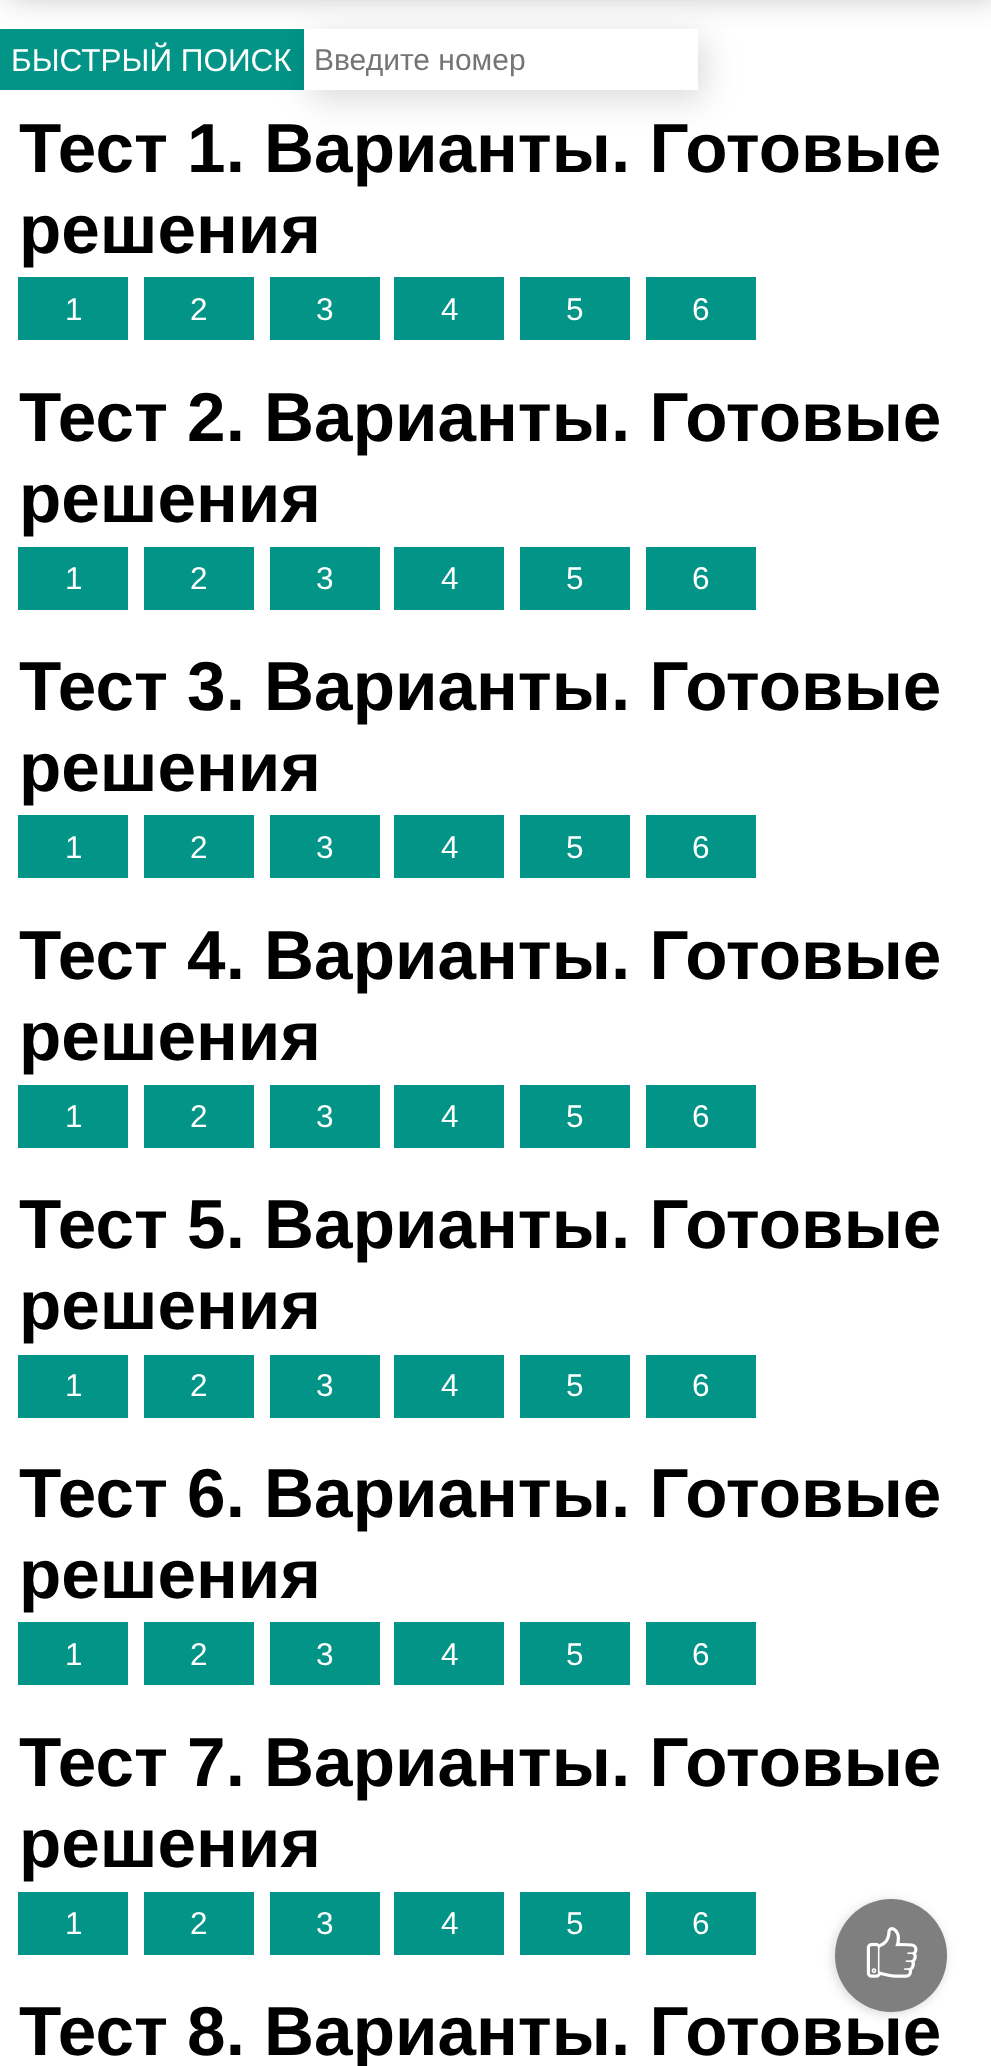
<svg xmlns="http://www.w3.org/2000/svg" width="991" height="2066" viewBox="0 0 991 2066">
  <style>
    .t1 { font: 31.5px Liberation Sans; fill: #fff; }
    .t2 { font: 30px Liberation Sans; fill: #757575; }
    .t3 { font: bold 69.25px Liberation Sans; fill: #000; }
  </style>
  <defs>
    <clipPath id="clip1"><path d="M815 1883H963V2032H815ZM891 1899C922 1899 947 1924 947 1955V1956C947 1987 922 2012 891 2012C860 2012 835 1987 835 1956V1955C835 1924 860 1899 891 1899Z" clip-rule="evenodd"/></clipPath>
  </defs>
  <rect width="100%" height="100%" fill="#fff"/>
  <rect x="7" y="-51" width="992" height="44" fill="#00000026" filter="blur(17px)"/>
  <rect x="7" y="-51" width="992" height="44" fill="#00000026" filter="blur(17px)"/>
  <rect x="0" y="29" width="304" height="61" fill="#019487"/>
  <text x="11" y="71" class="t1">БЫСТРЫЙ ПОИСК</text>
  <rect x="311" y="38" width="393" height="61" fill="#00000026" filter="blur(17px)"/>
  <rect x="304" y="29" width="394" height="61" fill="#fff"/>
  <text x="314" y="70" class="t2">Введите номер</text>
  <text x="19" y="172" class="t3">Тест 1. Варианты. Готовые</text>
  <text x="19" y="253" class="t3">решения</text>
  <rect x="18" y="277" width="110" height="63" fill="#019487"/>
  <text x="65" y="320" class="t1">1</text>
  <rect x="144" y="277" width="110" height="63" fill="#019487"/>
  <text x="190" y="320" class="t1">2</text>
  <rect x="270" y="277" width="110" height="63" fill="#019487"/>
  <text x="316" y="320" class="t1">3</text>
  <rect x="394" y="277" width="110" height="63" fill="#019487"/>
  <text x="441" y="320" class="t1">4</text>
  <rect x="520" y="277" width="110" height="63" fill="#019487"/>
  <text x="566" y="320" class="t1">5</text>
  <rect x="646" y="277" width="110" height="63" fill="#019487"/>
  <text x="692" y="320" class="t1">6</text>
  <text x="19" y="441" class="t3">Тест 2. Варианты. Готовые</text>
  <text x="19" y="522" class="t3">решения</text>
  <rect x="18" y="547" width="110" height="63" fill="#019487"/>
  <text x="65" y="589" class="t1">1</text>
  <rect x="144" y="547" width="110" height="63" fill="#019487"/>
  <text x="190" y="589" class="t1">2</text>
  <rect x="270" y="547" width="110" height="63" fill="#019487"/>
  <text x="316" y="589" class="t1">3</text>
  <rect x="394" y="547" width="110" height="63" fill="#019487"/>
  <text x="441" y="589" class="t1">4</text>
  <rect x="520" y="547" width="110" height="63" fill="#019487"/>
  <text x="566" y="589" class="t1">5</text>
  <rect x="646" y="547" width="110" height="63" fill="#019487"/>
  <text x="692" y="589" class="t1">6</text>
  <text x="19" y="710" class="t3">Тест 3. Варианты. Готовые</text>
  <text x="19" y="791" class="t3">решения</text>
  <rect x="18" y="815" width="110" height="63" fill="#019487"/>
  <text x="65" y="858" class="t1">1</text>
  <rect x="144" y="815" width="110" height="63" fill="#019487"/>
  <text x="190" y="858" class="t1">2</text>
  <rect x="270" y="815" width="110" height="63" fill="#019487"/>
  <text x="316" y="858" class="t1">3</text>
  <rect x="394" y="815" width="110" height="63" fill="#019487"/>
  <text x="441" y="858" class="t1">4</text>
  <rect x="520" y="815" width="110" height="63" fill="#019487"/>
  <text x="566" y="858" class="t1">5</text>
  <rect x="646" y="815" width="110" height="63" fill="#019487"/>
  <text x="692" y="858" class="t1">6</text>
  <text x="19" y="979" class="t3">Тест 4. Варианты. Готовые</text>
  <text x="19" y="1060" class="t3">решения</text>
  <rect x="18" y="1085" width="110" height="63" fill="#019487"/>
  <text x="65" y="1127" class="t1">1</text>
  <rect x="144" y="1085" width="110" height="63" fill="#019487"/>
  <text x="190" y="1127" class="t1">2</text>
  <rect x="270" y="1085" width="110" height="63" fill="#019487"/>
  <text x="316" y="1127" class="t1">3</text>
  <rect x="394" y="1085" width="110" height="63" fill="#019487"/>
  <text x="441" y="1127" class="t1">4</text>
  <rect x="520" y="1085" width="110" height="63" fill="#019487"/>
  <text x="566" y="1127" class="t1">5</text>
  <rect x="646" y="1085" width="110" height="63" fill="#019487"/>
  <text x="692" y="1127" class="t1">6</text>
  <text x="19" y="1248" class="t3">Тест 5. Варианты. Готовые</text>
  <text x="19" y="1329" class="t3">решения</text>
  <rect x="18" y="1355" width="110" height="63" fill="#019487"/>
  <text x="65" y="1396" class="t1">1</text>
  <rect x="144" y="1355" width="110" height="63" fill="#019487"/>
  <text x="190" y="1396" class="t1">2</text>
  <rect x="270" y="1355" width="110" height="63" fill="#019487"/>
  <text x="316" y="1396" class="t1">3</text>
  <rect x="394" y="1355" width="110" height="63" fill="#019487"/>
  <text x="441" y="1396" class="t1">4</text>
  <rect x="520" y="1355" width="110" height="63" fill="#019487"/>
  <text x="566" y="1396" class="t1">5</text>
  <rect x="646" y="1355" width="110" height="63" fill="#019487"/>
  <text x="692" y="1396" class="t1">6</text>
  <text x="19" y="1517" class="t3">Тест 6. Варианты. Готовые</text>
  <text x="19" y="1598" class="t3">решения</text>
  <rect x="18" y="1622" width="110" height="63" fill="#019487"/>
  <text x="65" y="1665" class="t1">1</text>
  <rect x="144" y="1622" width="110" height="63" fill="#019487"/>
  <text x="190" y="1665" class="t1">2</text>
  <rect x="270" y="1622" width="110" height="63" fill="#019487"/>
  <text x="316" y="1665" class="t1">3</text>
  <rect x="394" y="1622" width="110" height="63" fill="#019487"/>
  <text x="441" y="1665" class="t1">4</text>
  <rect x="520" y="1622" width="110" height="63" fill="#019487"/>
  <text x="566" y="1665" class="t1">5</text>
  <rect x="646" y="1622" width="110" height="63" fill="#019487"/>
  <text x="692" y="1665" class="t1">6</text>
  <text x="19" y="1786" class="t3">Тест 7. Варианты. Готовые</text>
  <text x="19" y="1867" class="t3">решения</text>
  <rect x="18" y="1892" width="110" height="63" fill="#019487"/>
  <text x="65" y="1934" class="t1">1</text>
  <rect x="144" y="1892" width="110" height="63" fill="#019487"/>
  <text x="190" y="1934" class="t1">2</text>
  <rect x="270" y="1892" width="110" height="63" fill="#019487"/>
  <text x="316" y="1934" class="t1">3</text>
  <rect x="394" y="1892" width="110" height="63" fill="#019487"/>
  <text x="441" y="1934" class="t1">4</text>
  <rect x="520" y="1892" width="110" height="63" fill="#019487"/>
  <text x="566" y="1934" class="t1">5</text>
  <rect x="646" y="1892" width="110" height="63" fill="#019487"/>
  <text x="692" y="1934" class="t1">6</text>
  <text x="19" y="2055" class="t3">Тест 8. Варианты. Готовые</text>
  <g clip-path="url(#clip1)">
    <rect x="833" y="1901" width="112" height="113" rx="56" fill="#00000026" filter="blur(5.5px)"/>
  </g>
  <rect x="835" y="1899" width="112" height="113" rx="56" fill="#00000080"/>
  <image x="866" y="1927" width="52" height="51" href="images/1.png"/>
</svg>
